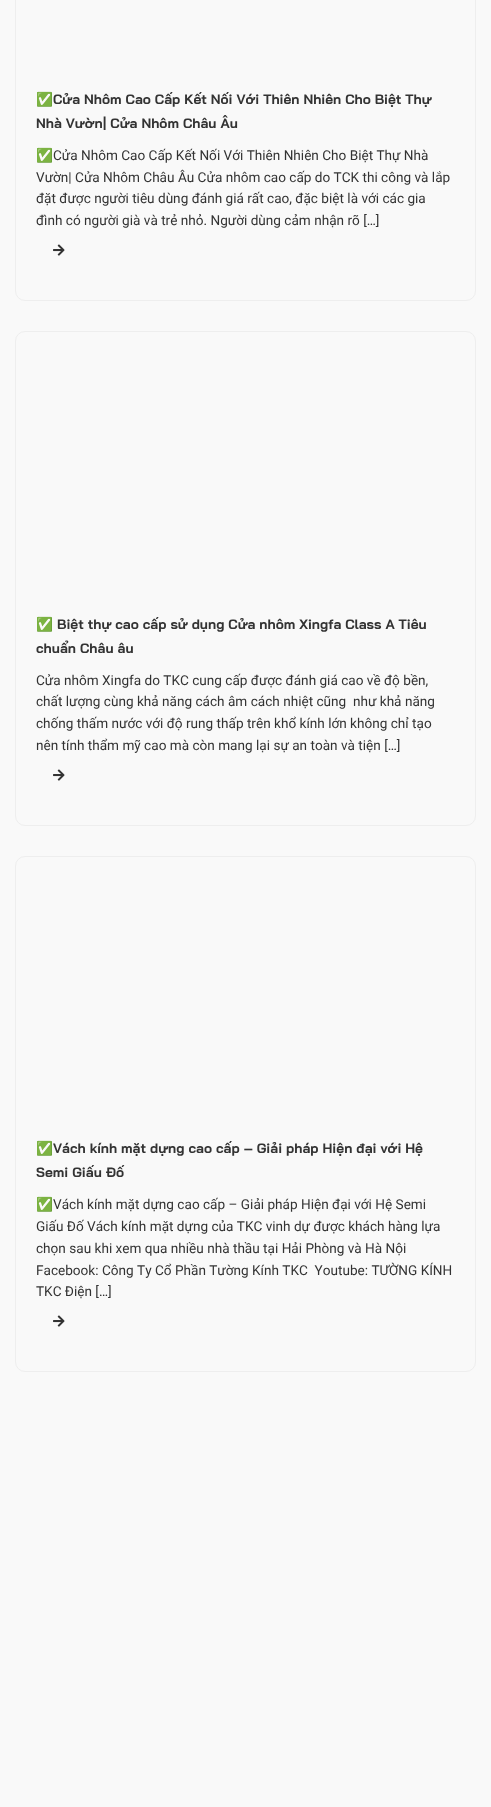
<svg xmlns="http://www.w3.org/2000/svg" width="491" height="1807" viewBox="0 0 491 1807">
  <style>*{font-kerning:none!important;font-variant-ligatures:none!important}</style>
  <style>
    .t1 { font: bold 13.6px Noto Color Emoji; fill: #333; }
    .t2 { font: bold 13.6px Bai Jamjuree; fill: #333; }
    .t3 { font: 13.6px Noto Color Emoji; fill: #333; }
    .t4 { font: 13.6px Roboto; fill: #333; }
  </style>
  <rect width="100%" height="100%" fill="#f9f9f9"/>
  <rect x="15.5" y="-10.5" width="460" height="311" rx="9.5" fill="none" stroke="#eee"/>
  <text x="36" y="104" class="t1">✅</text>
  <text x="53" y="104" class="t2">Cửa Nhôm Cao Cấp Kết Nối Với Thiên Nhiên Cho Biệt Thự</text>
  <text x="36" y="128" class="t2">Nhà Vườn| Cửa Nhôm Châu Âu</text>
  <text x="36" y="160" class="t3">✅</text>
  <text x="53" y="160" class="t4">Cửa Nhôm Cao Cấp Kết Nối Với Thiên Nhiên Cho Biệt Thự Nhà</text>
  <text x="36" y="182" class="t4">Vườn| Cửa Nhôm Châu Âu Cửa nhôm cao cấp do TCK thi công và lắp</text>
  <text x="36" y="203" class="t4">đặt được người tiêu dùng đánh giá rất cao, đặc biệt là với các gia</text>
  <text x="36" y="225" class="t4">đình có người già và trẻ nhỏ. Người dùng cảm nhận rõ […]</text>
  <image x="53" y="244" width="12" height="12" href="images/1.png"/>
  <rect x="15.5" y="331.5" width="460" height="494" rx="9.5" fill="none" stroke="#eee"/>
  <text x="36" y="629" class="t1">✅</text>
  <text x="57" y="629" class="t2">Biệt thự cao cấp sử dụng Cửa nhôm Xingfa Class A Tiêu</text>
  <text x="36" y="653" class="t2">chuẩn Châu âu</text>
  <text x="36" y="685" class="t4">Cửa nhôm Xingfa do TKC cung cấp được đánh giá cao về độ bền,</text>
  <text x="36" y="706" class="t4" xml:space="preserve">chất lượng cùng khả năng cách âm cách nhiệt cũng  như khả năng</text>
  <text x="36" y="728" class="t4">chống thấm nước với độ rung thấp trên khổ kính lớn không chỉ tạo</text>
  <text x="36" y="750" class="t4">nên tính thẩm mỹ cao mà còn mang lại sự an toàn và tiện […]</text>
  <image x="53" y="769" width="12" height="12" href="images/1.png"/>
  <rect x="15.5" y="856.5" width="460" height="515" rx="9.5" fill="none" stroke="#eee"/>
  <text x="36" y="1153" class="t1">✅</text>
  <text x="53" y="1153" class="t2">Vách kính mặt dựng cao cấp – Giải pháp Hiện đại với Hệ</text>
  <text x="36" y="1177" class="t2">Semi Giấu Đố</text>
  <text x="36" y="1209" class="t3">✅</text>
  <text x="53" y="1209" class="t4">Vách kính mặt dựng cao cấp – Giải pháp Hiện đại với Hệ Semi</text>
  <text x="36" y="1231" class="t4">Giấu Đố Vách kính mặt dựng của TKC vinh dự được khách hàng lựa</text>
  <text x="36" y="1253" class="t4">chọn sau khi xem qua nhiều nhà thầu tại Hải Phòng và Hà Nội</text>
  <text x="36" y="1275" class="t4" xml:space="preserve">Facebook: Công Ty Cổ Phần Tường Kính TKC  Youtube: TƯỜNG KÍNH</text>
  <text x="36" y="1296" class="t4">TKC Điện […]</text>
  <image x="53" y="1315" width="12" height="12" href="images/1.png"/>
</svg>
